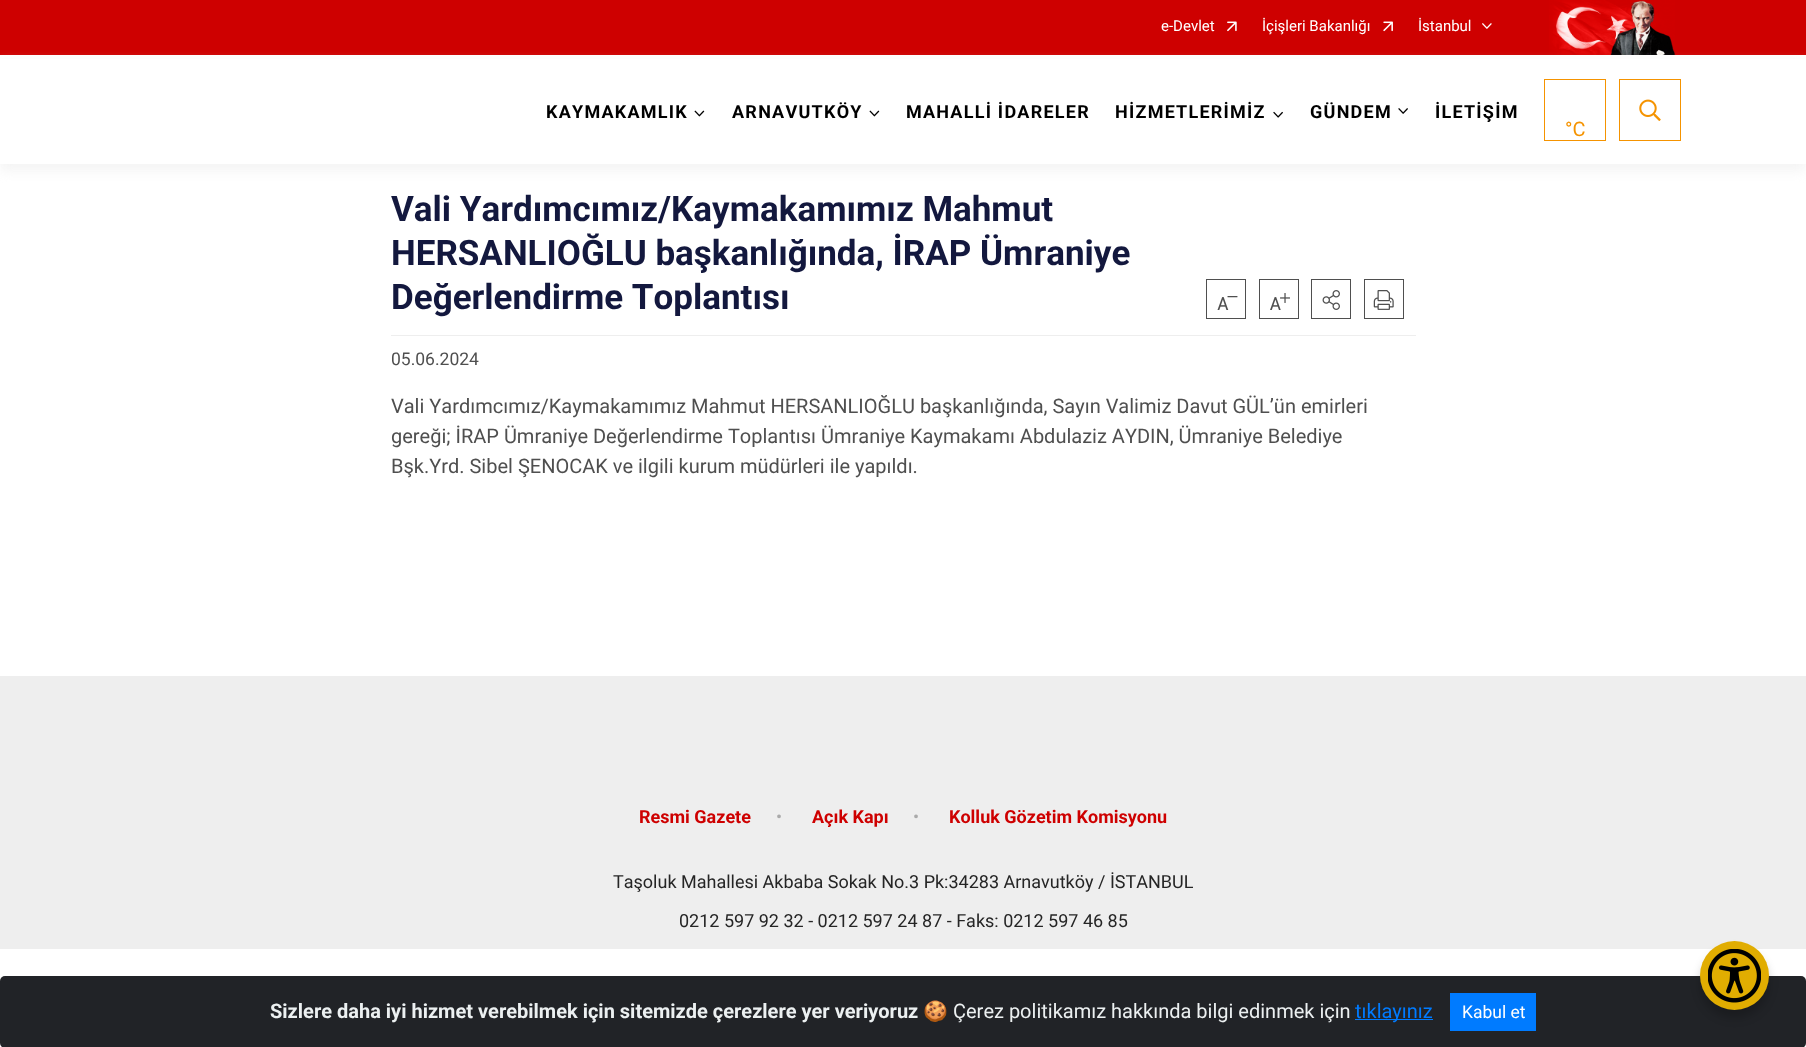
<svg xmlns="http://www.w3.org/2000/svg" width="1806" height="1047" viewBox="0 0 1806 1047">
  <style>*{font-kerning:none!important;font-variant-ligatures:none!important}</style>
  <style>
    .t1 { font: 15px Roboto; fill: #fff; }
    .t2 { font: bold 18px Roboto; letter-spacing: 1.25px; fill: #000; }
    .t3 { font: 20px Roboto; fill: #f59300; }
    .t4 { font: bold 35px Roboto; fill: #13183e; }
    .t5 { font: 17.5px Roboto; fill: #4f4f4f; }
    .t6 { font: 20px Roboto; fill: #4f4f4f; }
    .t7 { font: bold 18px Roboto; fill: #ce0000; }
    .t8 { font: 18px Roboto; fill: #aaa; }
    .t9 { font: 18px Roboto; fill: #252525; }
    .t10 { font: bold 20px Roboto; fill: #ecf0f1; }
    .t11 { font: 20px Noto Color Emoji; fill: #ecf0f1; }
    .t12 { font: 20px Roboto; fill: #ecf0f1; }
    .t13 { font: 20px Roboto; fill: #007bff; }
    .t14 { font: 17.5px Roboto; fill: #fff; }
  </style>
  <rect width="100%" height="100%" fill="#fff"/>
  <rect x="0" y="0" width="1806" height="55" fill="#ce0000"/>
  <text x="1161" y="31" class="t1">e-Devlet</text>
  <image x="1227" y="21" width="10" height="11" href="images/1.png"/>
  <text x="1262" y="31" class="t1">İçişleri Bakanlığı</text>
  <image x="1383" y="21" width="10" height="11" href="images/2.png"/>
  <text x="1418" y="31" class="t1">İstanbul</text>
  <image x="1482" y="23" width="10" height="6" href="images/3.png"/>
  <image x="1549" y="0" width="127" height="55" href="images/4.png"/>
  <rect x="0" y="63" width="1806" height="108" fill="#eeeeee9e" filter="blur(6px)"/>
  <rect x="0" y="59" width="1806" height="105" fill="#fff"/>
  <text x="546" y="118" class="t2">KAYMAKAMLIK</text>
  <image x="694" y="110" width="11" height="7" href="images/5.png"/>
  <text x="732" y="118" class="t2">ARNAVUTKÖY</text>
  <image x="869" y="110" width="11" height="7" href="images/5.png"/>
  <text x="906" y="118" class="t2">MAHALLİ İDARELER</text>
  <text x="1115" y="118" class="t2">HİZMETLERİMİZ</text>
  <image x="1273" y="111" width="10" height="7" href="images/6.png"/>
  <text x="1310" y="118" class="t2">GÜNDEM</text>
  <image x="1398" y="108" width="10" height="6" href="images/7.png"/>
  <text x="1435" y="118" class="t2">İLETİŞİM</text>
  <rect x="1544.5" y="79.5" width="61" height="61" fill="none" stroke="#f59300"/>
  <text x="1565" y="136" class="t3">°C</text>
  <rect x="1619.5" y="79.5" width="61" height="61" fill="none" stroke="#f59300"/>
  <image x="1639" y="99" width="22" height="22" href="images/8.png"/>
  <rect x="391" y="335" width="1025" height="1" fill="#eee"/>
  <text x="391" y="221" class="t4">Vali Yardımcımız/Kaymakamımız Mahmut</text>
  <text x="391" y="265" class="t4">HERSANLIOĞLU başkanlığında, İRAP Ümraniye</text>
  <text x="391" y="309" class="t4">Değerlendirme Toplantısı</text>
  <rect x="1206.5" y="279.5" width="39" height="39" fill="none" stroke="#4f4f4f"/>
  <image x="1217" y="296" width="21" height="14" href="images/9.png"/>
  <rect x="1259.5" y="279.5" width="39" height="39" fill="none" stroke="#4f4f4f"/>
  <image x="1270" y="293" width="20" height="17" href="images/10.png"/>
  <rect x="1311.5" y="279.5" width="39" height="39" fill="none" stroke="#4f4f4f"/>
  <image x="1322" y="290" width="18" height="20" href="images/11.png"/>
  <rect x="1364.5" y="279.5" width="39" height="39" fill="none" stroke="#4f4f4f"/>
  <image x="1373" y="290" width="21" height="20" href="images/12.png"/>
  <text x="391" y="365" class="t5">05.06.2024</text>
  <text x="391" y="413" class="t6">Vali Yardımcımız/Kaymakamımız Mahmut HERSANLIOĞLU başkanlığında, Sayın Valimiz Davut GÜL’ün emirleri</text>
  <text x="391" y="443" class="t6">gereği; İRAP Ümraniye Değerlendirme Toplantısı Ümraniye Kaymakamı Abdulaziz AYDIN, Ümraniye Belediye</text>
  <text x="391" y="473" class="t6">Bşk.Yrd. Sibel ŞENOCAK ve ilgili kurum müdürleri ile yapıldı.</text>
  <rect x="0" y="676" width="1806" height="273" fill="#eee"/>
  <text x="639" y="823" class="t7">Resmi Gazete</text>
  <text x="776" y="823" class="t8">•</text>
  <text x="812" y="823" class="t7">Açık Kapı</text>
  <text x="913" y="823" class="t8">•</text>
  <text x="949" y="823" class="t7">Kolluk Gözetim Komisyonu</text>
  <text x="613" y="888" class="t9">Taşoluk Mahallesi Akbaba Sokak No.3 Pk:34283 Arnavutköy / İSTANBUL</text>
  <text x="679" y="927" class="t9">0212 597 92 32 - 0212 597 24 87 - Faks: 0212 597 46 85</text>
  <rect x="0" y="976" width="1806" height="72" rx="5" fill="#212327"/>
  <text x="270" y="1018" class="t10">Sizlere daha iyi hizmet verebilmek için sitemizde çerezlere yer veriyoruz</text>
  <text x="923" y="1018" class="t11">🍪</text>
  <text x="953" y="1018" class="t12">Çerez politikamız hakkında bilgi edinmek için</text>
  <rect x="1355" y="1019" width="78" height="1" fill="#007bff"/>
  <text x="1355" y="1018" class="t13">tıklayınız</text>
  <rect x="1450" y="993" width="86" height="38" fill="#007bff"/>
  <text x="1462" y="1018" class="t14">Kabul et</text>
  <rect x="1700" y="949" width="69" height="69" rx="34.5" fill="#00000033" filter="blur(5px)"/>
  <circle cx="1734.5" cy="975.5" r="34.5" fill="#e1ad01"/>
  <image x="1708" y="949" width="53" height="54" href="images/13.png"/>
</svg>
